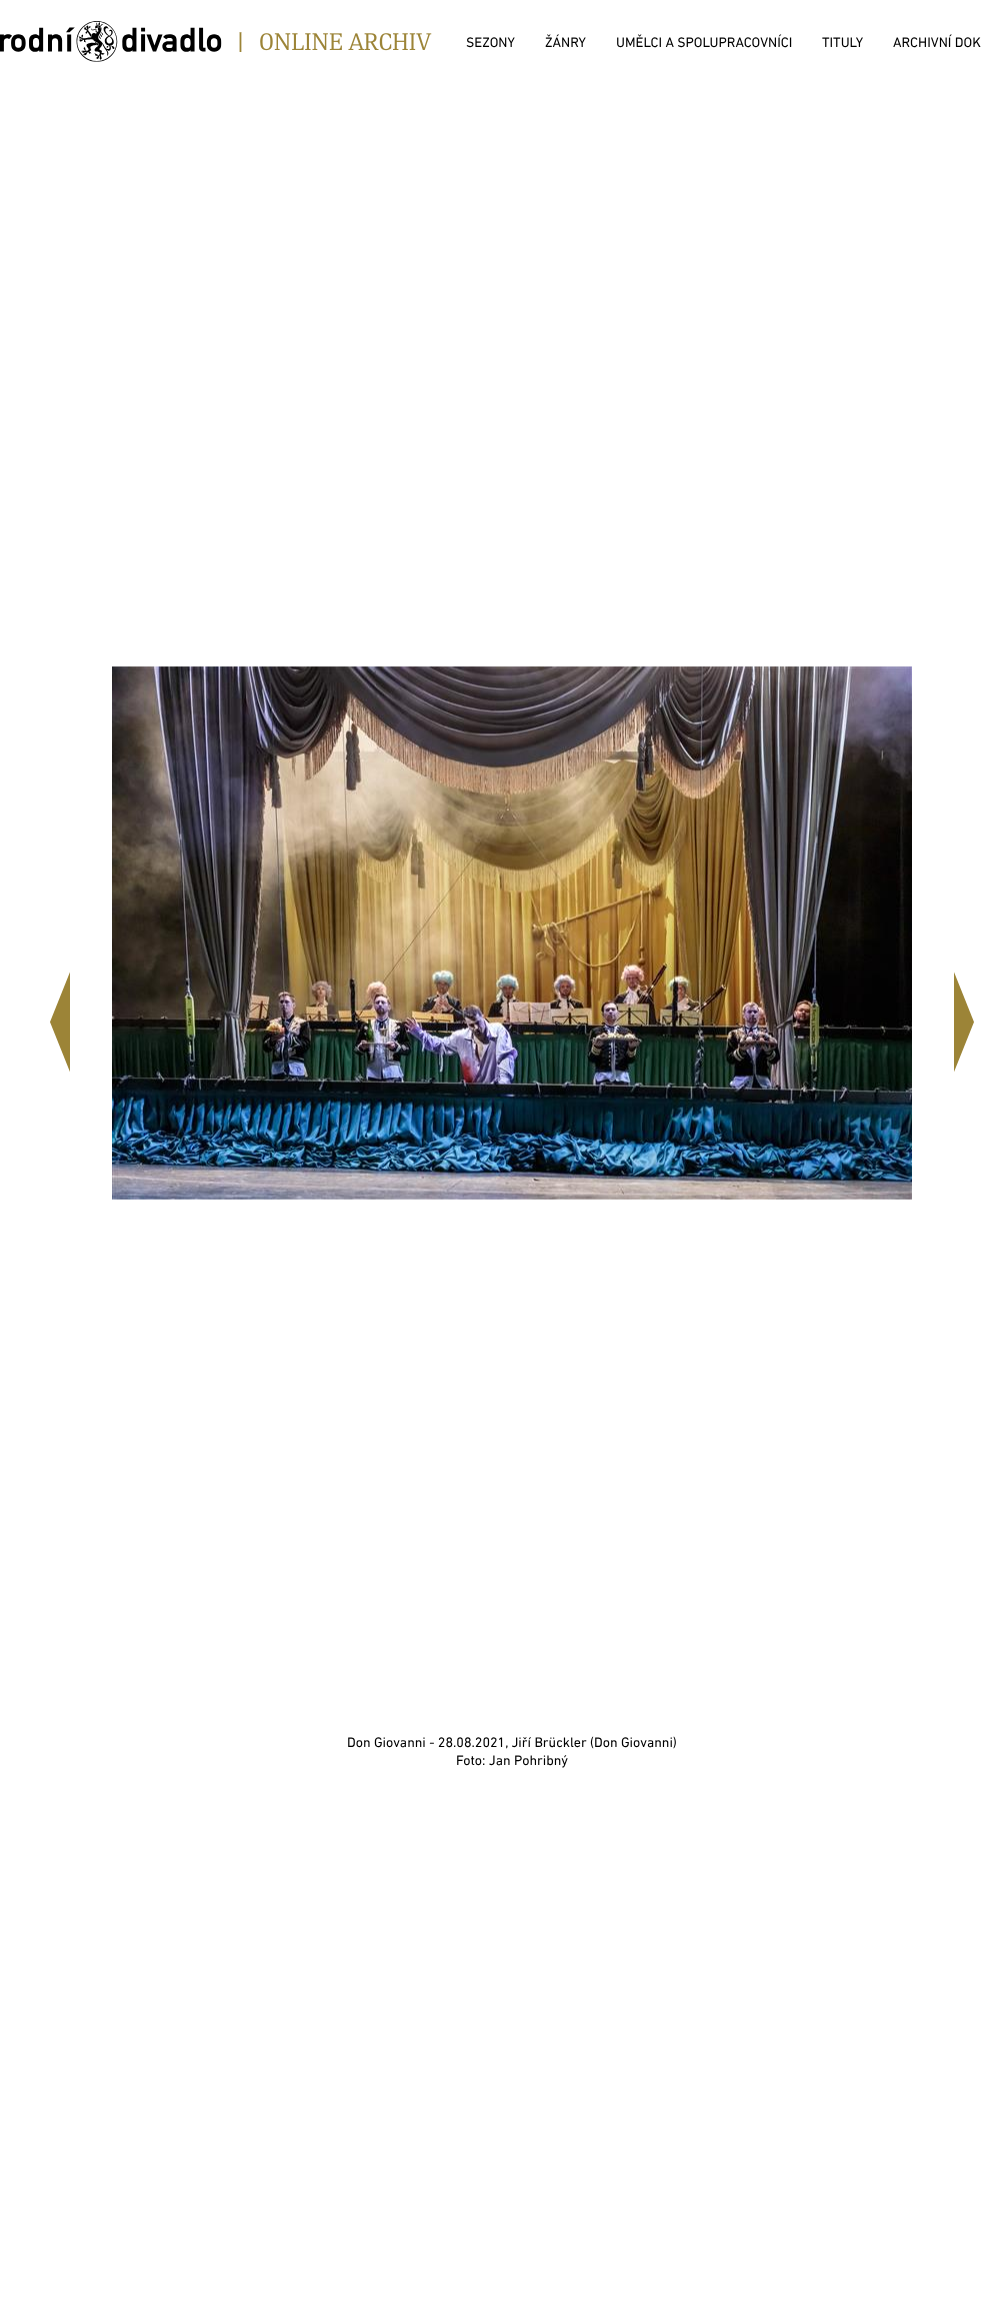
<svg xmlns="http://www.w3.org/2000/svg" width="983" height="2297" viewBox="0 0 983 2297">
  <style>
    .t1 { font: 24px DIN Next; fill: #9c8437; }
    .t2 { font: 14px DIN Next; fill: #000; }
  </style>
  <rect width="100%" height="100%" fill="#fff"/>
  <image x="0" y="21" width="222" height="41" href="images/1.png"/>
  <text x="237" y="50" class="t1">|</text>
  <image x="260" y="33" width="172" height="18" href="images/2.png"/>
  <text x="466" y="47" class="t2">SEZONY</text>
  <text x="545" y="47" class="t2">ŽÁNRY</text>
  <text x="616" y="47" class="t2">UMĚLCI A SPOLUPRACOVNÍCI</text>
  <text x="822" y="47" class="t2">TITULY</text>
  <text x="893" y="47" class="t2">ARCHIVNÍ DOK</text>
  <path d="M70 972V1072L50 1022Z" fill="#9c8437"/>
  <path d="M954 1072V972L974 1022Z" fill="#9c8437"/>
  <image x="112" y="666" width="800" height="534" href="images/3.png"/>
  <text x="347" y="1747" class="t2">Don Giovanni - 28.08.2021, Jiří Brückler (Don Giovanni)</text>
  <text x="456" y="1765" class="t2">Foto: Jan Pohribný</text>
</svg>
